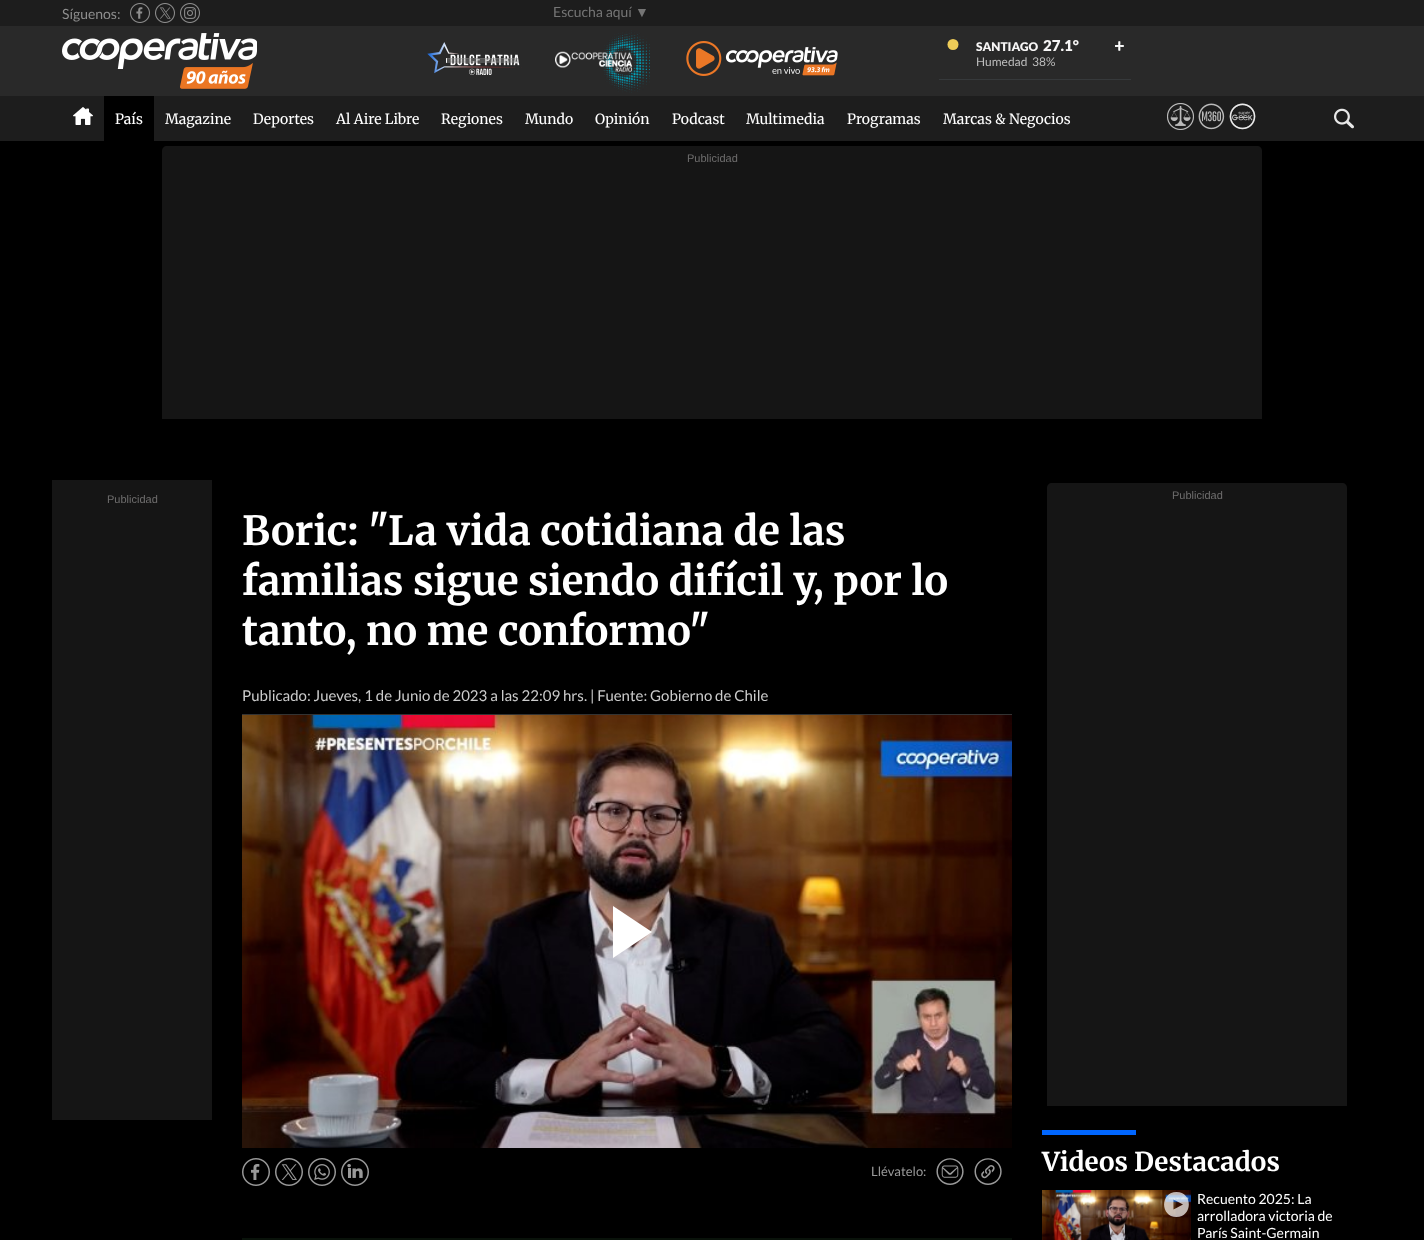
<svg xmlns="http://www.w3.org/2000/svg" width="1424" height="1240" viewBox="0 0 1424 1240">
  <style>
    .t1 { font: 14px Lato; fill: #8e8e8e; }
    .t2 { font: 14px Lato; fill: #757575; }
    .t3 { font: 14px Liberation Serif; fill: #757575; }
    .t4 { font: 900 12px Lato; fill: #f6f5f5; }
    .t5 { font: 900 15px Lato; fill: #f6f5f5; }
    .t6 { font: 12px Lato; fill: #bdbdbd; }
    .t7 { font: 19px Merriweather; fill: #fff; }
    .t8 { font: 14px Merriweather; fill: #fff; }
    .t9 { font: 11px Liberation Sans; fill: #6e6d6d; }
    .t10 { font: bold 40px Merriweather; fill: #fff; }
    .t11 { font: 15px Lato; fill: #ccc; }
    .t12 { font: 13px Lato; fill: #999; }
    .t13 { font: bold 26px Merriweather; fill: #fff; }
    .t14 { font: 14px Lato; fill: #fff; }
  </style>
  <rect width="100%" height="100%" fill="#000"/>
  <rect x="0" y="0" width="1424" height="26" fill="#1d1d1d"/>
  <text x="62" y="19" class="t1">Síguenos:</text>
  <image x="130" y="3" width="20" height="20" href="images/1.png"/>
  <image x="155" y="3" width="20" height="20" href="images/2.png"/>
  <image x="180" y="3" width="20" height="20" href="images/3.png"/>
  <text x="553" y="17" class="t2">Escucha aquí</text>
  <text x="635" y="17" class="t3">▼</text>
  <rect x="0" y="26" width="1424" height="70" fill="#292929"/>
  <image x="62" y="33" width="195" height="56" href="images/4.png"/>
  <image x="427" y="42" width="95" height="33" href="images/5.png"/>
  <image x="555" y="30" width="95" height="63" href="images/6.png"/>
  <image x="686" y="41" width="152" height="35" href="images/7.png"/>
  <rect x="939" y="79" width="192" height="1" fill="#36393b"/>
  <circle cx="953" cy="44.5" r="5.5" fill="#efcd58"/>
  <text x="976" y="51" class="t4">SANTIAGO</text>
  <text x="1043" y="51" class="t5">27.1°</text>
  <text x="976" y="66" class="t6">Humedad</text>
  <text x="1032" y="66" class="t6">38%</text>
  <text x="1113" y="52" class="t7">+</text>
  <text x="1113" y="52" class="t7">+</text>
  <rect x="0" y="96" width="1424" height="45" fill="#1d1d1d"/>
  <image x="73" y="107" width="20" height="18" href="images/8.png"/>
  <rect x="104" y="96" width="50" height="45" fill="#000"/>
  <text x="115" y="124" class="t8">País</text>
  <text x="165" y="124" class="t8">Magazine</text>
  <text x="253" y="124" class="t8">Deportes</text>
  <text x="336" y="124" class="t8">Al Aire Libre</text>
  <text x="441" y="124" class="t8">Regiones</text>
  <text x="525" y="124" class="t8">Mundo</text>
  <text x="595" y="124" class="t8">Opinión</text>
  <text x="672" y="124" class="t8">Podcast</text>
  <text x="746" y="124" class="t8">Multimedia</text>
  <text x="847" y="124" class="t8">Programas</text>
  <text x="943" y="124" class="t8">Marcas &amp; Negocios</text>
  <image x="1167" y="103" width="27" height="27" href="images/9.png"/>
  <image x="1198" y="103" width="27" height="27" href="images/10.png"/>
  <image x="1229" y="103" width="27" height="27" href="images/11.png"/>
  <image x="1334" y="108" width="20" height="21" href="images/12.png"/>
  <rect x="162" y="169" width="1100" height="250" fill="#151515"/>
  <path d="M167 146H1257C1260 146 1262 148 1262 151V169H162V151C162 148 164 146 167 146Z" fill="#151515"/>
  <text x="687" y="162" class="t9">Publicidad</text>
  <rect x="52" y="480" width="160" height="640" fill="#151515"/>
  <text x="107" y="503" class="t9">Publicidad</text>
  <text x="242" y="545" class="t10">Boric: "La vida cotidiana de las</text>
  <text x="242" y="595" class="t10">familias sigue siendo difícil y, por lo</text>
  <text x="242" y="645" class="t10">tanto, no me conformo"</text>
  <rect x="242" y="714" width="770" height="1" fill="#333"/>
  <text x="242" y="701" class="t11">Publicado: Jueves, 1 de Junio de 2023 a las 22:09 hrs. | Fuente: Gobierno de Chile</text>
  <image x="242" y="715" width="770" height="433" href="images/13.png"/>
  <path d="M613 906L652 932L613 958Z" fill="#fff"/>
  <image x="242" y="1158" width="28" height="28" href="images/14.png"/>
  <image x="275" y="1158" width="28" height="28" href="images/15.png"/>
  <image x="308" y="1158" width="28" height="28" href="images/16.png"/>
  <image x="341" y="1158" width="28" height="28" href="images/17.png"/>
  <text x="871" y="1176" class="t12">Llévatelo:</text>
  <image x="936" y="1158" width="28" height="27" href="images/18.png"/>
  <image x="974" y="1158" width="28" height="27" href="images/19.png"/>
  <rect x="1047" y="506" width="300" height="600" fill="#151515"/>
  <path d="M1052 483H1342C1345 483 1347 485 1347 488V506H1047V488C1047 485 1049 483 1052 483Z" fill="#151515"/>
  <text x="1172" y="499" class="t9">Publicidad</text>
  <rect x="1042" y="1130" width="94" height="5" fill="#06f"/>
  <text x="1042" y="1171" class="t13">Videos Destacados</text>
  <image x="1042" y="1190" width="149" height="50" href="images/20.png"/>
  <path d="M1176.5 1192C1160 1192 1160 1217 1176.5 1217C1193 1217 1193 1192 1176.5 1192ZM1173.5 1209.5V1199.5L1183 1204.5Z" fill="#ffffffb3"/>
  <text x="1197" y="1204" class="t14">Recuento 2025: La</text>
  <text x="1197" y="1221" class="t14">arrolladora victoria de</text>
  <text x="1197" y="1238" class="t14">París Saint-Germain</text>
  <rect x="242" y="1238" width="770" height="2" fill="#09120a"/>
</svg>
